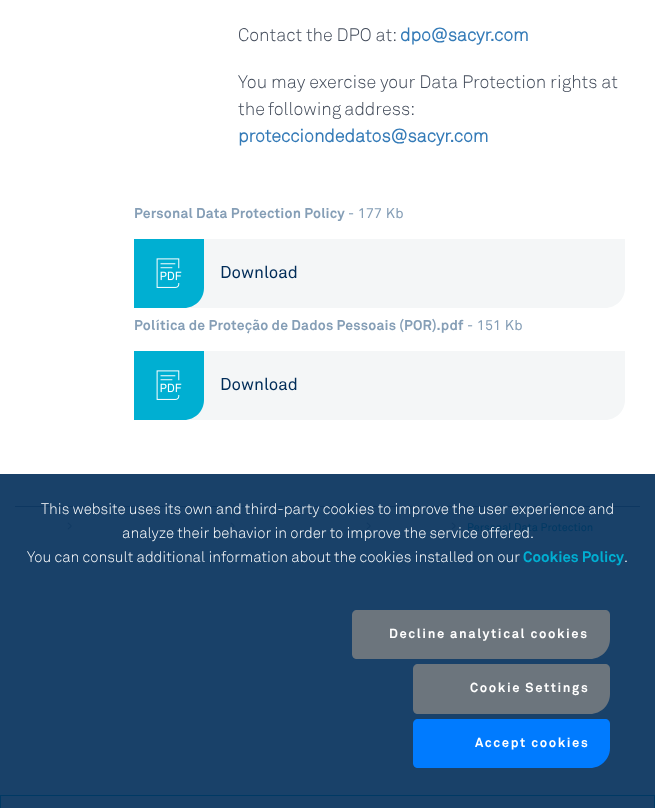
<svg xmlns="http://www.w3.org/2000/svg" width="655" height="808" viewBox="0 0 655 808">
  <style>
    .t1 { font: 300 18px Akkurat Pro; fill: #424b5a; }
    .t2 { font: bold 18px Akkurat Pro; fill: #337ab7; }
    .t3 { font: bold 14px 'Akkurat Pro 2'; letter-spacing: 0.2px; fill: #859eb6; }
    .t4 { font: 14px Akkurat Pro; letter-spacing: 0.2px; fill: #859eb6; }
    .t5 { font: 17px Akkurat Pro; fill: #002c58; }
    .t6 { font: 11px Akkurat Pro; fill: #003964; }
    .t7 { font: 300 15px Akkurat Pro; fill: #fff; }
    .t8 { font: bold 15px 'Akkurat Pro 2'; fill: #00afd2; }
    .t9 { font: bold 13px 'Akkurat Pro 2'; letter-spacing: 1.6px; fill: #fff; }
  </style>
  <rect width="100%" height="100%" fill="#fff"/>
  <rect x="0" y="474" width="655" height="334" fill="#194169"/>
  <text x="238" y="41" class="t1">Contact the DPO at:</text>
  <text x="400" y="41" class="t2">dpo@sacyr.com</text>
  <text x="238" y="88" class="t1">You may exercise your Data Protection rights at</text>
  <text x="238" y="115" word-spacing="-1" class="t1">the following address:</text>
  <text x="238" y="142" class="t2">protecciondedatos@sacyr.com</text>
  <text x="134" y="218" class="t3">Personal Data Protection Policy</text>
  <text x="348" y="218" class="t4">- 177 Kb</text>
  <path d="M134 239H625V288C625 299 616 308 605 308H134Z" fill="#f4f6f7"/>
  <path d="M134 239H204V288C204 299 195 308 184 308H134Z" fill="#00afd2"/>
  <image x="156" y="258" width="26" height="30" href="images/1.png"/>
  <text x="220" y="278" class="t5">Download</text>
  <text x="134" y="330" class="t3">Política de Proteção de Dados Pessoais (POR).pdf</text>
  <text x="467" y="330" class="t4">- 151 Kb</text>
  <path d="M134 351H625V400C625 411 616 420 605 420H134Z" fill="#f4f6f7"/>
  <path d="M134 351H204V400C204 411 195 420 184 420H134Z" fill="#00afd2"/>
  <image x="156" y="370" width="26" height="30" href="images/1.png"/>
  <text x="220" y="390" class="t5">Download</text>
  <rect x="15" y="506" width="625" height="1" fill="#0d3761"/>
  <image x="67" y="522" width="5" height="8" href="images/2.png"/>
  <image x="230" y="522" width="5" height="8" href="images/2.png"/>
  <image x="366" y="522" width="5" height="8" href="images/2.png"/>
  <image x="451" y="522" width="5" height="8" href="images/2.png"/>
  <text x="467" y="531" class="t6">Personal Data Protection</text>
  <text x="41" y="514" class="t7">This website uses its own and third-party cookies to improve the user experience and</text>
  <text x="122" y="538" class="t7">analyze their behavior in order to improve the service offered.</text>
  <text x="27" y="562" class="t7">You can consult additional information about the cookies installed on our</text>
  <text x="523" y="562" class="t8">Cookies Policy</text>
  <text x="624" y="562" class="t7">.</text>
  <path d="M357 610H605C608 610 610 612 610 615V639C610 650 601 659 590 659H357C354 659 352 657 352 654V615C352 612 354 610 357 610Z" fill="#6c757d"/>
  <text x="389" y="638" class="t9">Decline analytical cookies</text>
  <path d="M418 664H605C608 664 610 666 610 669V694C610 705 601 714 590 714H418C415 714 413 712 413 709V669C413 666 415 664 418 664Z" fill="#6c757d"/>
  <text x="470" y="692" class="t9">Cookie Settings</text>
  <path d="M418 719H605C608 719 610 721 610 724V748C610 759 601 768 590 768H418C415 768 413 766 413 763V724C413 721 415 719 418 719Z" fill="#007bff"/>
  <text x="475" y="747" class="t9">Accept cookies</text>
  <rect x="0.5" y="795.5" width="654" height="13" fill="none" stroke="#003964"/>
</svg>
